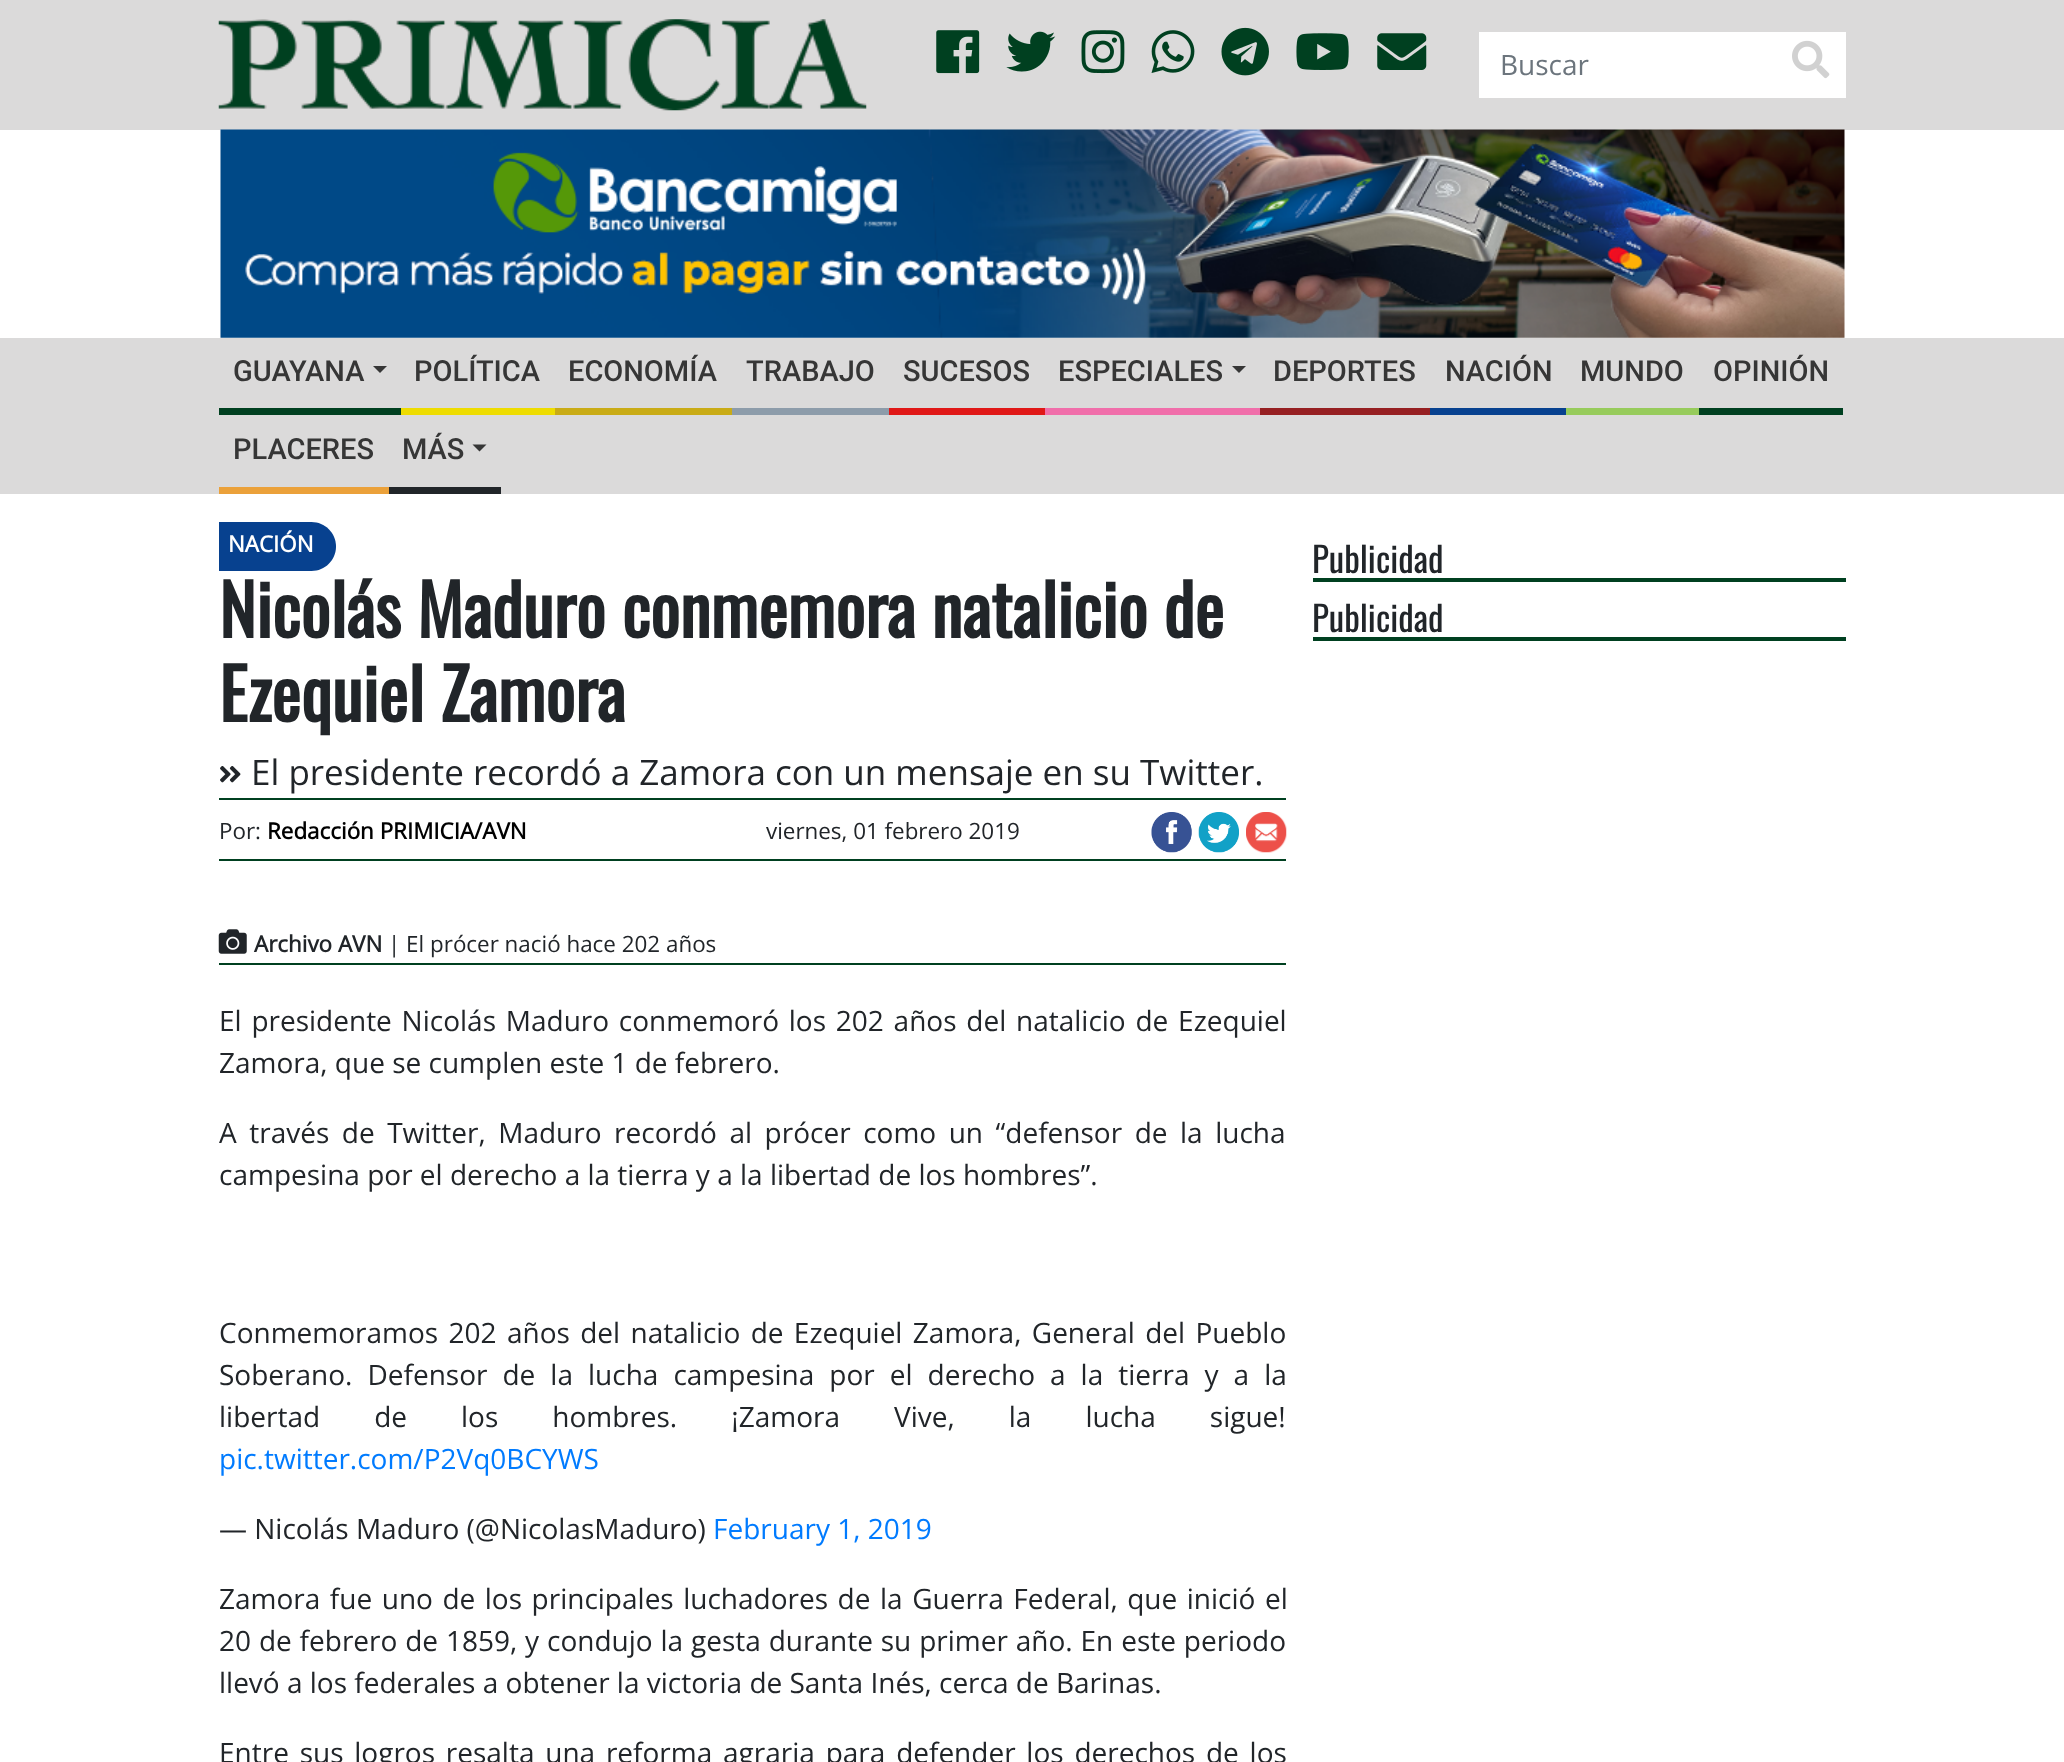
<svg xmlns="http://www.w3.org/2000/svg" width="2064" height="1762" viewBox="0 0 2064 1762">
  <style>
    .t1 { font: 28px Open Sans; fill: #6c757d; }
    .t2 { font: 500 29px Roboto; fill: #363636; }
    .t3 { font: bold 22.4px Open Sans; fill: #fff; }
    .t4 { font: bold 70px Oswald; fill: #212529; }
    .t5 { font: 35px Open Sans; fill: #212529; }
    .t6 { font: 22.4px Open Sans; fill: #212529; }
    .t7 { font: bold 22.4px Open Sans; fill: #000; }
    .t8 { font: bold 22.4px Open Sans; fill: #212529; }
    .t9 { font: 28px Open Sans; fill: #212529; }
    .t10 { font: 28px Open Sans; fill: #007bff; }
    .t11 { font: 35px Oswald; fill: #212529; }
  </style>
  <rect width="100%" height="100%" fill="#fff"/>
  <rect x="0" y="0" width="2064" height="130" fill="#dbdada"/>
  <image x="218" y="19" width="649" height="92" href="images/1.png"/>
  <image x="936" y="30" width="44" height="44" href="images/2.png"/>
  <image x="1006" y="31" width="50" height="41" href="images/3.png"/>
  <image x="1081" y="30" width="44" height="44" href="images/4.png"/>
  <image x="1151" y="30" width="44" height="43" href="images/5.png"/>
  <image x="1221" y="27" width="48" height="49" href="images/6.png"/>
  <image x="1296" y="33" width="53" height="37" href="images/7.png"/>
  <image x="1377" y="33" width="50" height="37" href="images/8.png"/>
  <rect x="1479" y="32" width="367" height="66" fill="#fff"/>
  <image x="1792" y="40" width="38" height="39" href="images/9.png"/>
  <text x="1500" y="75" class="t1">Buscar</text>
  <image x="220" y="129" width="1625" height="209" href="images/10.png"/>
  <rect x="0" y="338" width="2064" height="156" fill="#dbdada"/>
  <rect x="219" y="408" width="182" height="7" fill="#004020"/>
  <text x="233" y="381" class="t2">GUAYANA</text>
  <path d="M373 366H387L380 373Z" fill="#363636"/>
  <rect x="401" y="408" width="154" height="7" fill="#eedc00"/>
  <text x="414" y="381" class="t2">POLÍTICA</text>
  <rect x="555" y="408" width="177" height="7" fill="#c9ab16"/>
  <text x="568" y="381" class="t2">ECONOMÍA</text>
  <rect x="732" y="408" width="157" height="7" fill="#8d9caa"/>
  <text x="746" y="381" class="t2">TRABAJO</text>
  <rect x="889" y="408" width="156" height="7" fill="#e01817"/>
  <text x="903" y="381" class="t2">SUCESOS</text>
  <rect x="1045" y="408" width="215" height="7" fill="#f06eaa"/>
  <text x="1058" y="381" class="t2">ESPECIALES</text>
  <path d="M1232 366H1246L1239 373Z" fill="#363636"/>
  <rect x="1260" y="408" width="170" height="7" fill="#961f22"/>
  <text x="1273" y="381" class="t2">DEPORTES</text>
  <rect x="1430" y="408" width="136" height="7" fill="#07418f"/>
  <text x="1445" y="381" class="t2">NACIÓN</text>
  <rect x="1566" y="408" width="133" height="7" fill="#97cb5b"/>
  <text x="1580" y="381" class="t2">MUNDO</text>
  <rect x="1699" y="408" width="144" height="7" fill="#004020"/>
  <text x="1713" y="381" class="t2">OPINIÓN</text>
  <rect x="219" y="487" width="170" height="7" fill="#eba13a"/>
  <text x="233" y="459" class="t2">PLACERES</text>
  <rect x="389" y="487" width="112" height="7" fill="#212529"/>
  <text x="402" y="459" class="t2">MÁS</text>
  <path d="M472.5 444.5H486.5L479.5 451.5Z" fill="#363636"/>
  <path d="M219 522H311.5C325 522 336 533 336 546.5C336 560 325 571 311.5 571H219Z" fill="#07418f"/>
  <text x="228" y="552" class="t3">NACIÓN</text>
  <text x="219" y="638" class="t4">Nicolás Maduro conmemora natalicio de</text>
  <text x="219" y="722" class="t4">Ezequiel Zamora</text>
  <image x="220" y="766" width="21" height="17" href="images/11.png"/>
  <text x="251" y="785" class="t5">El presidente recordó a Zamora con un mensaje en su Twitter.</text>
  <rect x="219" y="798" width="1067" height="2" fill="#004020"/>
  <rect x="219" y="859" width="1067" height="2" fill="#004020"/>
  <text x="219" y="839" class="t6">Por:</text>
  <text x="267" y="839" class="t7">Redacción PRIMICIA/AVN</text>
  <text x="766" y="839" class="t6">viernes, 01 febrero 2019</text>
  <image x="1151" y="812" width="41" height="41" href="images/12.png"/>
  <image x="1198" y="812" width="41" height="41" href="images/13.png"/>
  <image x="1246" y="812" width="41" height="41" href="images/14.png"/>
  <rect x="219" y="963" width="1067" height="2" fill="#004020"/>
  <image x="218" y="929" width="29" height="25" href="images/15.png"/>
  <text x="254" y="952" class="t8">Archivo AVN</text>
  <text x="388" y="952" class="t6">| El prócer nació hace 202 años</text>
  <text x="219" y="1031" word-spacing="2.5" class="t9">El presidente Nicolás Maduro conmemoró los 202 años del natalicio de Ezequiel</text>
  <text x="219" y="1073" class="t9">Zamora, que se cumplen este 1 de febrero.</text>
  <text x="219" y="1143" word-spacing="5.25" class="t9">A través de Twitter, Maduro recordó al prócer como un “defensor de la lucha</text>
  <text x="219" y="1185" class="t9">campesina por el derecho a la tierra y a la libertad de los hombres”.</text>
  <text x="219" y="1343" word-spacing="3.1" class="t9">Conmemoramos 202 años del natalicio de Ezequiel Zamora, General del Pueblo</text>
  <text x="219" y="1385" word-spacing="7.75" class="t9">Soberano. Defensor de la lucha campesina por el derecho a la tierra y a la</text>
  <text x="219" y="1427" word-spacing="46.75" class="t9">libertad de los hombres. ¡Zamora Vive, la lucha sigue!</text>
  <text x="219" y="1469" class="t10">pic.twitter.com/P2Vq0BCYWS</text>
  <text x="219" y="1539" class="t9">— Nicolás Maduro (@NicolasMaduro)</text>
  <text x="713" y="1539" class="t10">February 1, 2019</text>
  <text x="219" y="1609" word-spacing="2.25" class="t9">Zamora fue uno de los principales luchadores de la Guerra Federal, que inició el</text>
  <text x="219" y="1651" word-spacing="0.6" class="t9">20 de febrero de 1859, y condujo la gesta durante su primer año. En este periodo</text>
  <text x="219" y="1693" class="t9">llevó a los federales a obtener la victoria de Santa Inés, cerca de Barinas.</text>
  <text x="219" y="1763" word-spacing="3.5" class="t9">Entre sus logros resalta una reforma agraria para defender los derechos de los</text>
  <rect x="1313" y="578" width="533" height="4" fill="#004020"/>
  <text x="1312" y="573" class="t11">Publicidad</text>
  <rect x="1313" y="637" width="533" height="4" fill="#004020"/>
  <text x="1312" y="632" class="t11">Publicidad</text>
</svg>
